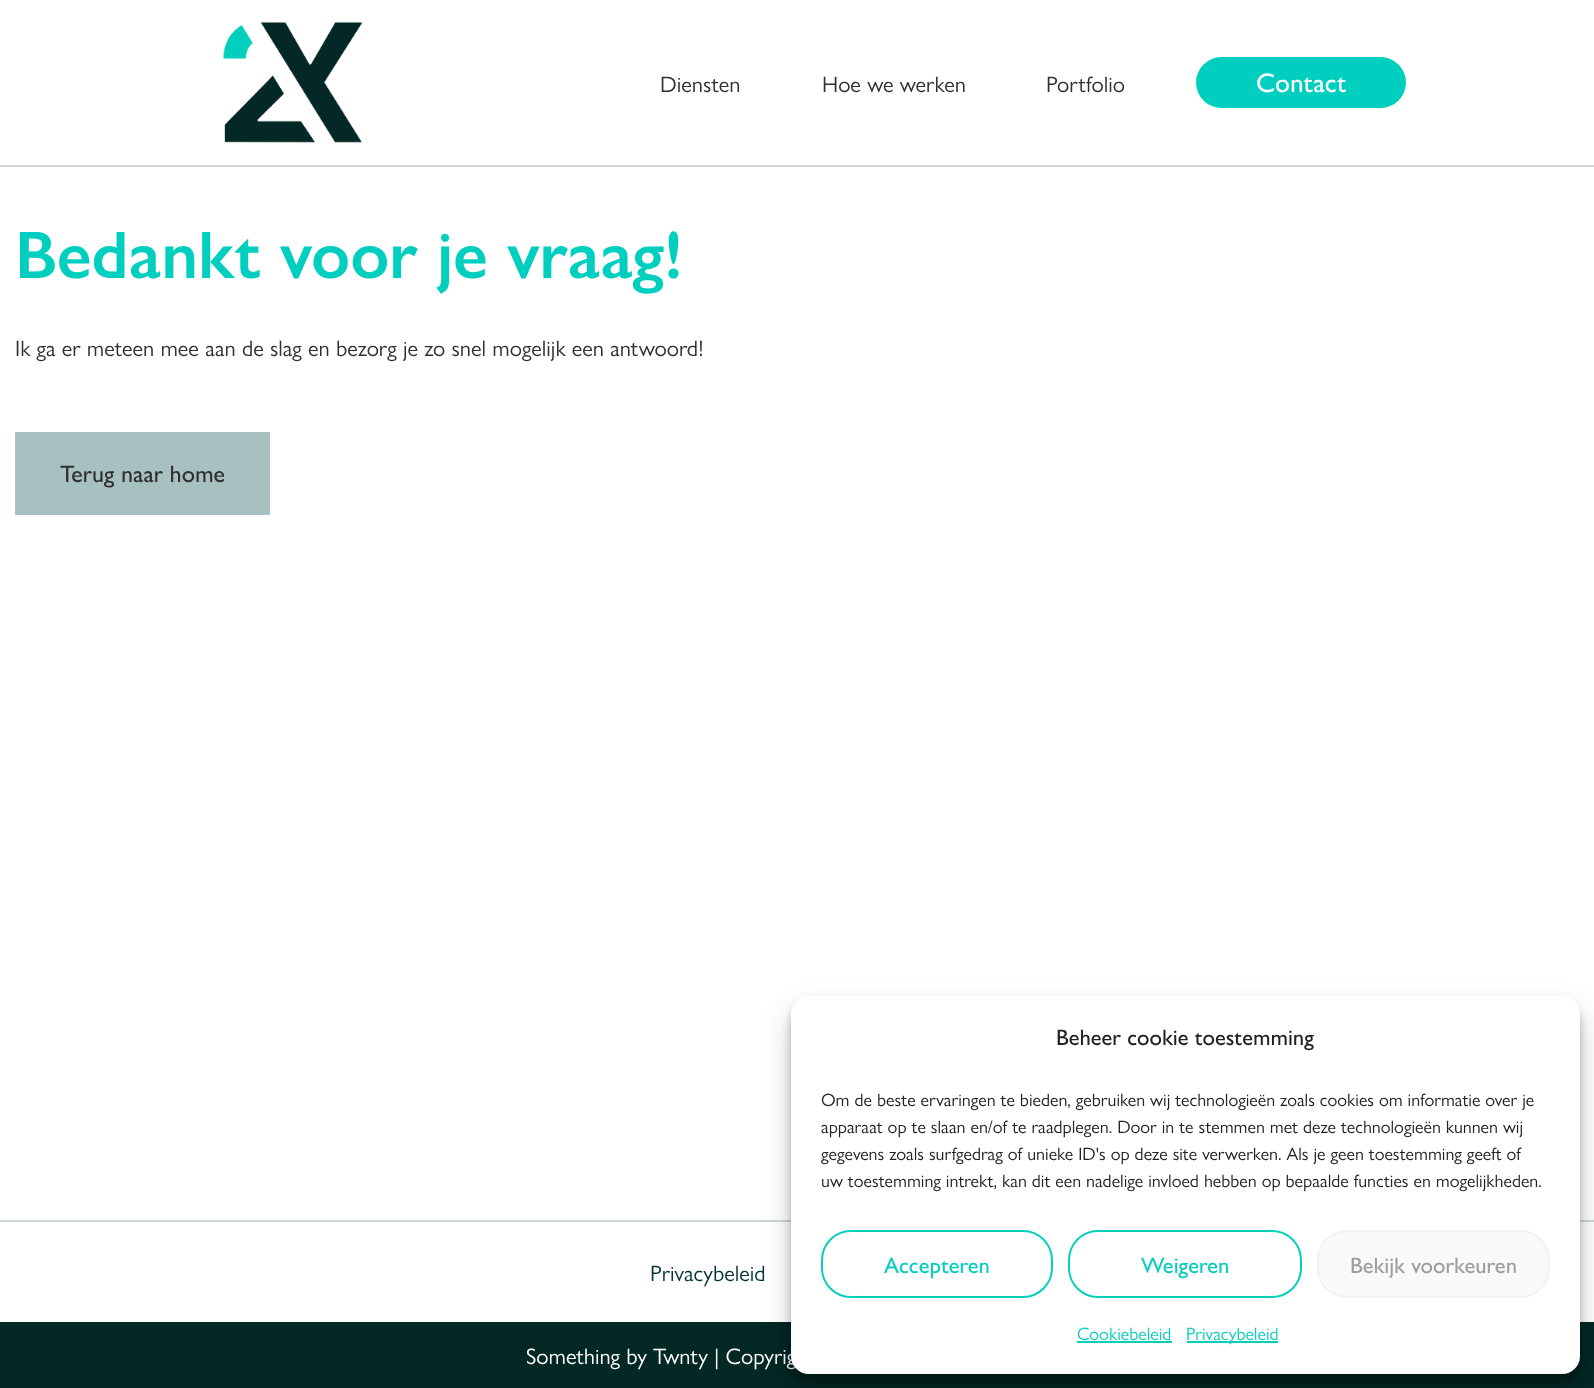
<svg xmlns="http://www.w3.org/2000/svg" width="1594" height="1388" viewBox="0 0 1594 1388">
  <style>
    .t1 { font: 22.5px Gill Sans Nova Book; fill: #303030; }
    .t2 { font: 500 27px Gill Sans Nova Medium; fill: #fff; }
    .t3 { font: 600 67.5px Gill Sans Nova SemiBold; fill: #00cfbf; }
    .t4 { font: 500 24px Gill Sans Nova Medium; fill: #303030; }
    .t5 { font: 22.5px Gill Sans Nova Book; fill: #033537; }
    .t6 { font: 22.5px Gill Sans Nova Book; fill: #fff; }
    .t7 { font: 500 22.5px Gill Sans Nova Medium; fill: #222; }
    .t8 { font: 18px Gill Sans Nova Book; fill: #222; }
    .t9 { font: 500 22.5px Gill Sans Nova Medium; fill: #08cebe; }
    .t10 { font: 500 22.5px Gill Sans Nova Medium; fill: #9e9e9e; }
    .t11 { font: 18px Gill Sans Nova Book; fill: #08cebe; }
  </style>
  <defs>
    <clipPath id="clip1"><rect x="821" y="1085" width="729" height="115"/></clipPath>
  </defs>
  <rect width="100%" height="100%" fill="#fff"/>
  <rect x="0" y="165" width="1594" height="2" fill="#d6d6d6"/>
  <image x="223" y="22" width="140" height="121" href="images/1.png"/>
  <text x="660" y="92" class="t1">Diensten</text>
  <text x="822" y="92" class="t1">Hoe we werken</text>
  <text x="1046" y="92" class="t1">Portfolio</text>
  <rect x="1196" y="57" width="210" height="51" rx="25.5" fill="#00cfbf"/>
  <text x="1256" y="92" class="t2">Contact</text>
  <text x="15" y="278" class="t3">Bedankt voor je vraag!</text>
  <text x="15" y="356" class="t1">Ik ga er meteen mee aan de slag en bezorg je zo snel mogelijk een antwoord!</text>
  <rect x="15" y="432" width="255" height="83" fill="#a6c1bf"/>
  <text x="60" y="482" class="t4">Terug naar home</text>
  <rect x="0" y="1220" width="1594" height="2" fill="#cdd7d7"/>
  <text x="650" y="1281" class="t5">Privacybeleid</text>
  <rect x="0" y="1322" width="1594" height="66" fill="#042824"/>
  <text x="526" y="1364" class="t6">Something by Twnty | Copyrig</text>
  <rect x="791" y="1005" width="789" height="378" rx="18" fill="#0000003b" filter="blur(4.5px)"/>
  <rect x="791" y="1011" width="789" height="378" rx="18" fill="#00000030" filter="blur(15px)"/>
  <rect x="791" y="996" width="789" height="378" rx="18" fill="#fff"/>
  <text x="1056" y="1045" class="t7">Beheer cookie toestemming</text>
  <text x="821" y="1106" class="t8">Om de beste ervaringen te bieden, gebruiken wij technologieën zoals cookies om informatie over je</text>
  <text x="821" y="1133" class="t8">apparaat op te slaan en/of te raadplegen. Door in te stemmen met deze technologieën kunnen wij</text>
  <g clip-path="url(#clip1)">
    <text x="821" y="1160" class="t8">gegevens zoals surfgedrag of unieke ID's op deze site verwerken. Als je geen toestemming geeft of</text>
  </g>
  <text x="821" y="1187" class="t8">uw toestemming intrekt, kan dit een nadelige invloed hebben op bepaalde functies en mogelijkheden.</text>
  <rect x="822" y="1231" width="230" height="66" rx="29" fill="none" stroke="#08cebe" stroke-width="2"/>
  <text x="884" y="1273" class="t9">Accepteren</text>
  <rect x="1069" y="1231" width="232" height="66" rx="29" fill="none" stroke="#08cebe" stroke-width="2"/>
  <text x="1141" y="1273" class="t9">Weigeren</text>
  <rect x="1318" y="1231" width="231" height="66" rx="29" fill="#f9f9f9" stroke="#f2f2f2" stroke-width="2"/>
  <text x="1350" y="1273" class="t10">Bekijk voorkeuren</text>
  <text x="1077" y="1340" class="t11">Cookiebeleid</text>
  <rect x="1077" y="1341" width="95" height="2" fill="#08cebe"/>
  <rect x="1187" y="1341" width="91" height="2" fill="#08cebe"/>
  <text x="1186" y="1340" class="t11">Privacybeleid</text>
</svg>
